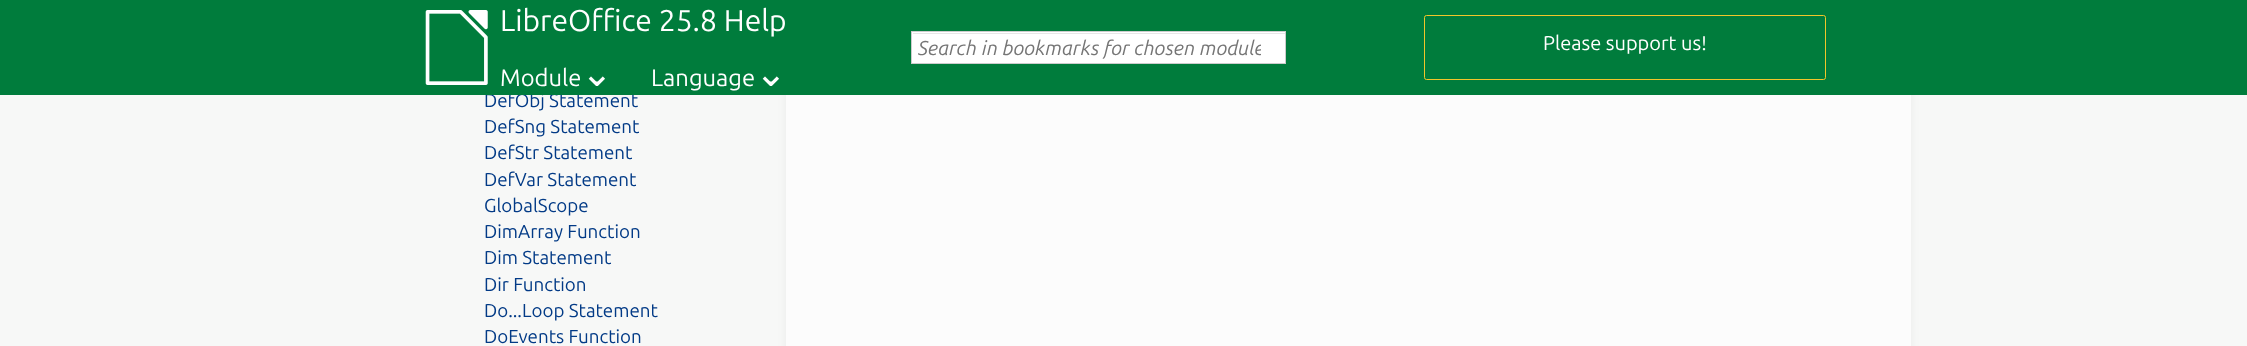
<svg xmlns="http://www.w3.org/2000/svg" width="2247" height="346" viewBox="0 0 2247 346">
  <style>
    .t1 { font: 18.75px Ubuntu; fill: #023a86; }
    .t2 { font: 30px Ubuntu; fill: #fff; }
    .t3 { font: 23.75px Ubuntu; fill: #fff; }
    .t4 { font: 38px DejaVu Sans; fill: #fff; }
    .t5 { font: italic 20px Ubuntu; fill: #757575; }
    .t6 { font: 20px Ubuntu; fill: #fff; }
  </style>
  <defs>
    <clipPath id="clip1"><rect x="918" y="36" width="343" height="23"/></clipPath>
  </defs>
  <rect width="100%" height="100%" fill="#f7f8f7"/>
  <rect x="786" y="-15" width="1125" height="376" fill="#0000000d" filter="blur(5px)"/>
  <text x="484" y="107" class="t1">DefObj Statement</text>
  <rect x="0" y="0" width="2247" height="95" fill="#007c3c"/>
  <image x="425" y="10" width="63" height="75" href="images/1.png"/>
  <text x="500" y="31" class="t2">LibreOffice 25.8 Help</text>
  <text x="500" y="86" class="t3">Module</text>
  <text x="581" y="86" class="t4">⌄</text>
  <text x="651" y="86" class="t3">Language</text>
  <text x="755" y="86" class="t4">⌄</text>
  <rect x="786" y="95" width="1125" height="251" fill="#fcfcfc"/>
  <rect x="912" y="32" width="373" height="31" fill="#fff"/>
  <rect x="913" y="33" width="372" height="1" fill="#e6e6e6"/>
  <rect x="911.5" y="31.5" width="374" height="32" fill="none" stroke="#ccc"/>
  <g clip-path="url(#clip1)">
    <text x="918" y="55" class="t5">Search in bookmarks for chosen module</text>
  </g>
  <rect x="1424.5" y="15.5" width="401" height="64" rx="2" fill="none" stroke="#f1c62a"/>
  <text x="1543" y="50" class="t6">Please support us!</text>
  <text x="484" y="133" class="t1">DefSng Statement</text>
  <text x="484" y="159" class="t1">DefStr Statement</text>
  <text x="484" y="186" class="t1">DefVar Statement</text>
  <text x="484" y="212" class="t1">GlobalScope</text>
  <text x="484" y="238" class="t1">DimArray Function</text>
  <text x="484" y="264" class="t1">Dim Statement</text>
  <text x="484" y="291" class="t1">Dir Function</text>
  <text x="484" y="317" class="t1">Do...Loop Statement</text>
  <text x="484" y="343" class="t1">DoEvents Function</text>
</svg>
